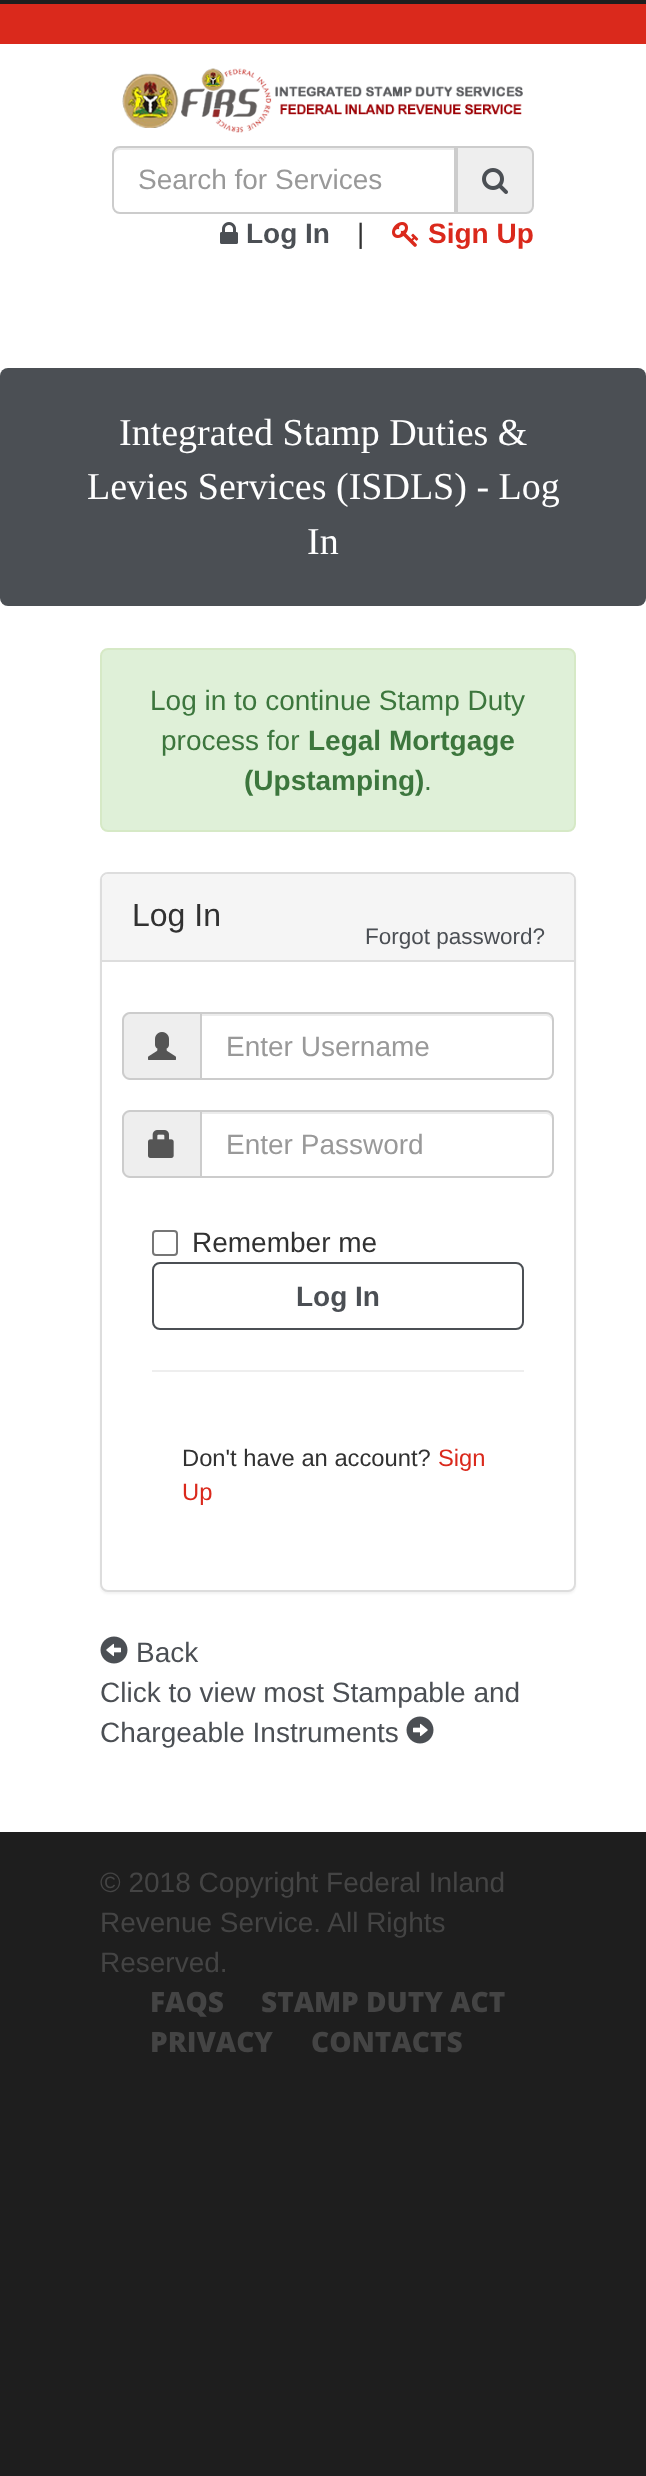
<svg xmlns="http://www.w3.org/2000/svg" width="646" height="2476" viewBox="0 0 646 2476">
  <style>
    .t1 { font: 28px Liberation Sans; fill: #999; }
    .t2 { font: bold 28px Liberation Sans; fill: #4b4f54; }
    .t3 { font: 28px Liberation Sans; fill: #313131; }
    .t4 { font: bold 28px Liberation Sans; fill: #da291c; }
    .t5 { font: 38px Liberation Serif; fill: #fff; }
    .t6 { font: 28px Liberation Sans; fill: #3c763d; }
    .t7 { font: bold 28px Liberation Sans; fill: #3c763d; }
    .t8 { font: 32px Liberation Sans; fill: #313131; }
    .t9 { font: 22.5px Liberation Sans; fill: #4b4f54; }
    .t10 { font: 23.75px Liberation Sans; fill: #313131; }
    .t11 { font: 23.75px Liberation Sans; fill: #da291c; }
    .t12 { font: 28px Liberation Sans; fill: #4b4f54; }
    .t13 { font: 28px Liberation Sans; fill: #444; }
    .t14 { font: 800 28px Open Sans; fill: #444; }
  </style>
  <rect width="100%" height="100%" fill="#1e1e1e"/>
  <rect x="0" y="44" width="646" height="1788" fill="#fff"/>
  <rect x="0" y="4" width="646" height="40" fill="#da291c"/>
  <image x="122" y="68" width="401" height="65" href="images/1.png"/>
  <path d="M120 150H454V148H119C115 149 114 153 114 156C114 153 117 150 120 150Z" fill="#ececec"/>
  <path d="M120 147H455V213H120C116 213 113 210 113 206V154C113 150 116 147 120 147Z" fill="none" stroke="#ccc" stroke-width="2"/>
  <text x="138" y="189" class="t1">Search for Services</text>
  <path d="M457 147H526C530 147 533 150 533 154V206C533 210 530 213 526 213H457Z" fill="#eee" stroke="#ccc" stroke-width="2"/>
  <image x="482" y="168" width="26" height="26" href="images/2.png"/>
  <image x="220" y="222" width="18" height="22" href="images/3.png"/>
  <text x="246" y="243" class="t2">Log In</text>
  <text x="357" y="243" class="t3">|</text>
  <image x="392" y="222" width="27" height="25" href="images/4.png"/>
  <text x="428" y="243" class="t4">Sign Up</text>
  <rect x="0" y="368" width="646" height="238" rx="8" fill="#4b4f54"/>
  <text x="119" y="445" class="t5">Integrated Stamp Duties &amp;</text>
  <text x="87" y="499" class="t5">Levies Services (ISDLS) - Log</text>
  <text x="307" y="554" class="t5">In</text>
  <rect x="101" y="649" width="474" height="182" rx="7" fill="#dff0d8" stroke="#d6e9c6" stroke-width="2"/>
  <text x="150" y="710" class="t6">Log in to continue Stamp Duty</text>
  <text x="161" y="750" class="t6">process for</text>
  <text x="308" y="750" class="t7">Legal Mortgage</text>
  <text x="244" y="790" class="t7">(Upstamping)</text>
  <text x="424" y="790" class="t6">.</text>
  <rect x="100" y="874" width="476" height="720" rx="8" fill="#0000000d" filter="blur(1px)"/>
  <rect x="101" y="873" width="474" height="718" rx="7" fill="#fff" stroke="#ddd" stroke-width="2"/>
  <path d="M108 874H568C571.5 874 574 876.5 574 880V962H102V880C102 876.5 104.5 874 108 874Z" fill="#f5f5f5"/>
  <rect x="102" y="960" width="472" height="2" fill="#ddd"/>
  <text x="132" y="926" class="t8">Log In</text>
  <text x="365" y="944" class="t9">Forgot password?</text>
  <path d="M130 1012H200V1080H130C125.5 1080 122 1076.5 122 1072V1020C122 1015.5 125.5 1012 130 1012Z" fill="#eee"/>
  <path d="M130 1012H200V1080H130C126 1080 122 1076 122 1072V1020C122 1016 126 1012 130 1012ZM130 1014H200V1078H130C127 1078 124 1075 124 1072V1020C124 1017 127 1014 130 1014Z" fill="#ccc" fill-rule="evenodd"/>
  <image x="148" y="1032" width="28" height="28" href="images/5.png"/>
  <path d="M202 1016H546C549 1016 552 1019 552 1022V1020C552 1017 549 1014 546 1014H202Z" fill="#ececec"/>
  <path d="M201 1013H546C550 1013 553 1016 553 1020V1072C553 1076 550 1079 546 1079H201Z" fill="none" stroke="#ccc" stroke-width="2"/>
  <text x="226" y="1056" class="t1">Enter Username</text>
  <path d="M130 1110H200V1178H130C125.5 1178 122 1174.5 122 1170V1118C122 1113.5 125.5 1110 130 1110Z" fill="#eee"/>
  <path d="M130 1110H200V1178H130C126 1178 122 1174 122 1170V1118C122 1114 126 1110 130 1110ZM130 1112H200V1176H130C127 1176 124 1173 124 1170V1118C124 1115 127 1112 130 1112Z" fill="#ccc" fill-rule="evenodd"/>
  <image x="148" y="1130" width="26" height="28" href="images/6.png"/>
  <path d="M202 1114H546C549 1114 552 1117 552 1120V1118C552 1115 549 1112 546 1112H202Z" fill="#ececec"/>
  <path d="M201 1111H546C550 1111 553 1114 553 1118V1170C553 1174 550 1177 546 1177H201Z" fill="none" stroke="#ccc" stroke-width="2"/>
  <text x="226" y="1154" class="t1">Enter Password</text>
  <rect x="153" y="1231" width="24" height="24" rx="3" fill="none" stroke="#767676" stroke-width="2"/>
  <text x="192" y="1252" class="t3">Remember me</text>
  <rect x="153" y="1263" width="370" height="66" rx="7" fill="none" stroke="#4b4f54" stroke-width="2"/>
  <text x="296" y="1306" class="t2">Log In</text>
  <rect x="152" y="1370" width="372" height="2" fill="#eee"/>
  <text x="182" y="1466" class="t10">Don't have an account?</text>
  <text x="438" y="1466" class="t11">Sign</text>
  <text x="182" y="1500" class="t11">Up</text>
  <image x="100" y="1636" width="28" height="28" href="images/7.png"/>
  <text x="136" y="1662" class="t12">Back</text>
  <text x="100" y="1702" class="t12">Click to view most Stampable and</text>
  <text x="100" y="1742" class="t12">Chargeable Instruments</text>
  <image x="406" y="1716" width="28" height="28" href="images/8.png"/>
  <text x="100" y="1892" class="t13">© 2018 Copyright Federal Inland</text>
  <text x="100" y="1932" class="t13">Revenue Service. All Rights</text>
  <text x="100" y="1972" class="t13">Reserved.</text>
  <text x="150" y="2012" class="t14">FAQS</text>
  <text x="261" y="2012" class="t14">STAMP DUTY ACT</text>
  <text x="150" y="2052" class="t14">PRIVACY</text>
  <text x="311" y="2052" class="t14">CONTACTS</text>
</svg>
